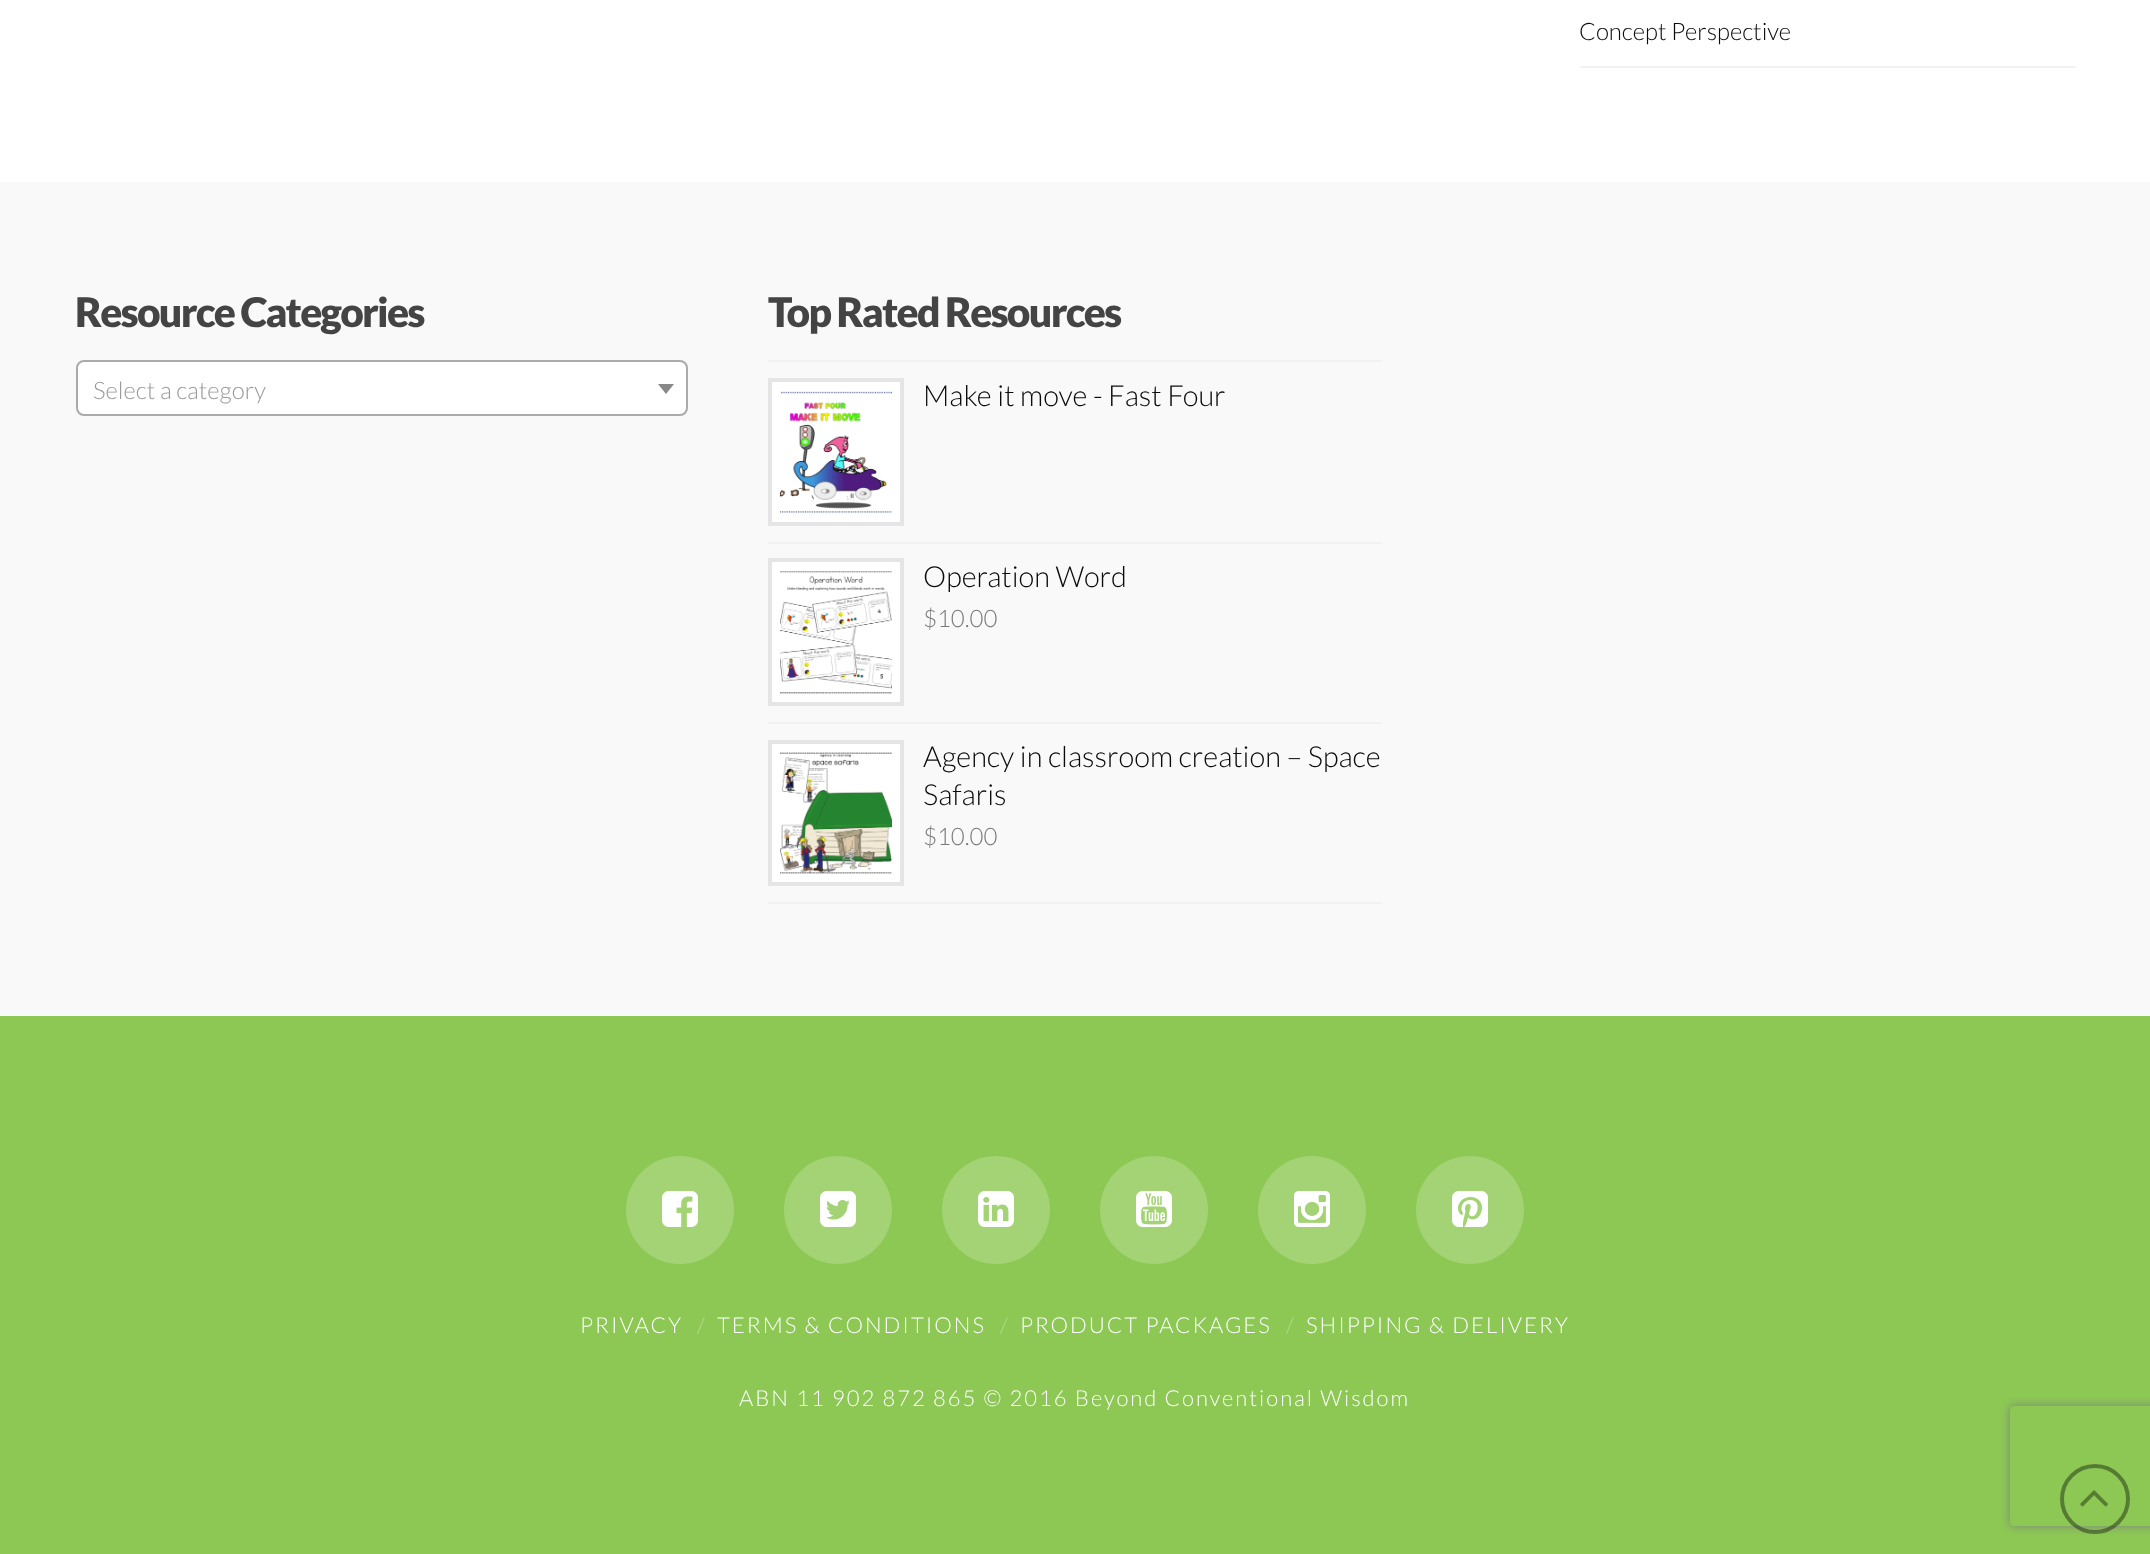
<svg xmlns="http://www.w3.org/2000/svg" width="2150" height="1554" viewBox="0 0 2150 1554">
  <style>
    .t1 { font: 300 24px Lato; fill: #0a0a0a; }
    .t2 { font: 900 40.75px Lato; letter-spacing: -1.75px; fill: #444; }
    .t3 { font: 300 24px Lato; fill: #999; }
    .t4 { font: 300 29px Lato; fill: #0a0a0a; }
    .t5 { font: 300 24px Lato; fill: #7a7a7a; }
    .t6 { font: 300 22px Lato; letter-spacing: 2px; fill: #fff; }
    .t7 { font: 300 22px Lato; fill: #b4db8f; }
  </style>
  <defs>
    <clipPath id="clip1"><path d="M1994 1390H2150V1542H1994ZM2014 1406H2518C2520 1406 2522 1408 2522 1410V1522C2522 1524 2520 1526 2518 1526H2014C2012 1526 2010 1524 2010 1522V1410C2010 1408 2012 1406 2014 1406Z" clip-rule="evenodd"/></clipPath>
  </defs>
  <rect width="100%" height="100%" fill="#fff"/>
  <rect x="1580" y="66" width="496" height="2" fill="#f2f2f2"/>
  <text x="1579" y="40" class="t1">Concept Perspective</text>
  <rect x="0" y="182" width="2150" height="834" fill="#f9f9f9"/>
  <text x="75" y="327" class="t2">Resource Categories</text>
  <rect x="77" y="361" width="610" height="54" rx="7" fill="#fff" stroke="#aaa" stroke-width="2"/>
  <text x="93" y="399" class="t3">Select a category</text>
  <path d="M658 384H674L666 394Z" fill="#888"/>
  <text x="768" y="327" class="t2">Top Rated Resources</text>
  <rect x="768" y="360" width="614" height="2" fill="#f2f2f2"/>
  <rect x="768" y="542" width="614" height="2" fill="#f2f2f2"/>
  <rect x="770" y="380" width="132" height="144" fill="#fff" stroke="#e5e5e5" stroke-width="4"/>
  <image x="780" y="391" width="112" height="123" href="images/1.png"/>
  <text x="923" y="406" class="t4">Make it move - Fast Four</text>
  <rect x="768" y="722" width="614" height="2" fill="#f2f2f2"/>
  <rect x="770" y="560" width="132" height="144" fill="#fff" stroke="#e5e5e5" stroke-width="4"/>
  <image x="780" y="571" width="112" height="123" href="images/2.png"/>
  <text x="923" y="587" class="t4">Operation Word</text>
  <text x="923" y="627" class="t5">$10.00</text>
  <rect x="768" y="902" width="614" height="2" fill="#f2f2f2"/>
  <rect x="770" y="742" width="132" height="142" fill="#fff" stroke="#e5e5e5" stroke-width="4"/>
  <image x="780" y="752" width="112" height="122" href="images/3.png"/>
  <text x="923" y="767" class="t4">Agency in classroom creation – Space</text>
  <text x="923" y="805" class="t4">Safaris</text>
  <text x="923" y="845" class="t5">$10.00</text>
  <rect x="0" y="1016" width="2150" height="538" fill="#8cc853"/>
  <circle cx="680" cy="1210" r="54" fill="#a3d375"/>
  <image x="662" y="1191" width="36" height="36" href="images/4.png"/>
  <circle cx="838" cy="1210" r="54" fill="#a3d375"/>
  <image x="820" y="1191" width="36" height="36" href="images/5.png"/>
  <circle cx="996" cy="1210" r="54" fill="#a3d375"/>
  <image x="978" y="1191" width="36" height="36" href="images/6.png"/>
  <circle cx="1154" cy="1210" r="54" fill="#a3d375"/>
  <image x="1136" y="1191" width="36" height="36" href="images/7.png"/>
  <circle cx="1312" cy="1210" r="54" fill="#a3d375"/>
  <image x="1294" y="1191" width="36" height="36" href="images/8.png"/>
  <circle cx="1470" cy="1210" r="54" fill="#a3d375"/>
  <image x="1452" y="1191" width="36" height="36" href="images/9.png"/>
  <text x="580" y="1333" class="t6">PRIVACY</text>
  <text x="697" y="1333" class="t7">/</text>
  <text x="717" y="1333" class="t6">TERMS &amp; CONDITIONS</text>
  <text x="1000" y="1333" class="t7">/</text>
  <text x="1020" y="1333" class="t6">PRODUCT PACKAGES</text>
  <text x="1286" y="1333" class="t7">/</text>
  <text x="1306" y="1333" class="t6">SHIPPING &amp; DELIVERY</text>
  <text x="739" y="1406" class="t6">ABN 11 902 872 865 © 2016 Beyond Conventional Wisdom</text>
  <g clip-path="url(#clip1)">
    <rect x="2010" y="1406" width="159" height="120" rx="4" fill="#808080" filter="blur(5px)"/>
  </g>
  <circle cx="2095" cy="1499" r="33" fill="none" stroke="#00000061" stroke-width="4"/>
  <image x="2080" y="1490" width="28" height="17" href="images/10.png"/>
</svg>
